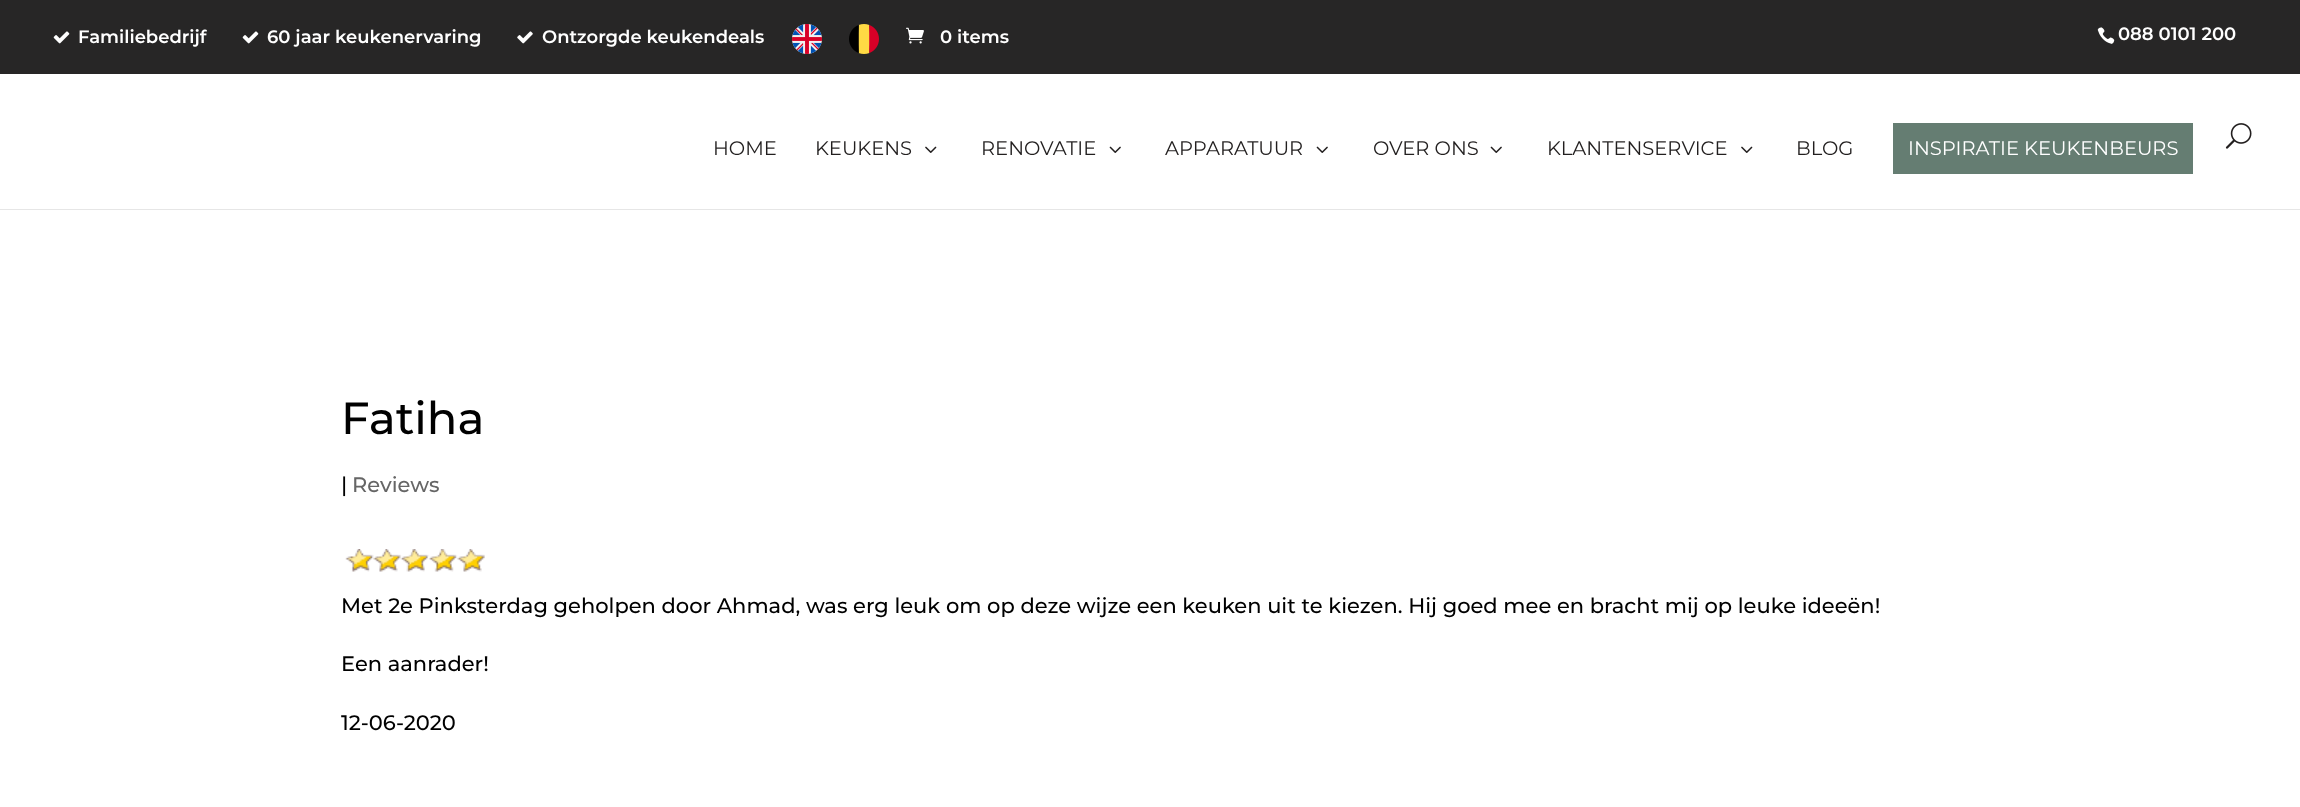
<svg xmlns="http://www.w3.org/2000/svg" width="2300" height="807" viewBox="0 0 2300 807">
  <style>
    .t1 { font: 600 18px Montserrat; fill: #fff; }
    .t2 { font: 19.5px Montserrat; fill: #221f1f; }
    .t3 { font: 19.5px Montserrat; fill: #fff; }
    .t4 { font: 500 45px Montserrat; fill: #000; }
    .t5 { font: 500 21px Montserrat; fill: #000; }
    .t6 { font: 500 21px Montserrat; fill: #666; }
  </style>
  <rect width="100%" height="100%" fill="#fff"/>
  <rect x="0" y="0" width="2300" height="74" fill="#272626"/>
  <image x="53" y="31" width="17" height="13" href="images/1.png"/>
  <text x="78" y="43" class="t1">Familiebedrijf</text>
  <image x="242" y="31" width="17" height="13" href="images/1.png"/>
  <text x="267" y="43" class="t1">60 jaar keukenervaring</text>
  <image x="517" y="31" width="16" height="13" href="images/2.png"/>
  <text x="542" y="43" class="t1">Ontzorgde keukendeals</text>
  <image x="792" y="24" width="30" height="30" href="images/3.png"/>
  <image x="849" y="24" width="30" height="30" href="images/4.png"/>
  <image x="906" y="27" width="18" height="17" href="images/5.png"/>
  <text x="940" y="43" class="t1">0 items</text>
  <image x="2097" y="27" width="18" height="17" href="images/6.png"/>
  <text x="2118" y="40" class="t1">088 0101 200</text>
  <rect x="0" y="209" width="2300" height="1" fill="#e6e6e6"/>
  <text x="713" y="155" class="t2">HOME</text>
  <text x="815" y="155" class="t2">KEUKENS</text>
  <image x="925" y="146" width="12" height="7" href="images/7.png"/>
  <text x="981" y="155" class="t2">RENOVATIE</text>
  <image x="1109" y="146" width="12" height="7" href="images/8.png"/>
  <text x="1165" y="155" class="t2">APPARATUUR</text>
  <image x="1316" y="146" width="12" height="7" href="images/8.png"/>
  <text x="1373" y="155" class="t2">OVER ONS</text>
  <image x="1490" y="146" width="12" height="7" href="images/8.png"/>
  <text x="1547" y="155" class="t2">KLANTENSERVICE</text>
  <image x="1741" y="146" width="12" height="7" href="images/7.png"/>
  <text x="1796" y="155" class="t2">BLOG</text>
  <rect x="1893" y="123" width="300" height="51" fill="#657d72"/>
  <text x="1908" y="155" class="t3">INSPIRATIE KEUKENBEURS</text>
  <image x="2225" y="123" width="27" height="26" href="images/9.png"/>
  <text x="341" y="434" class="t4">Fatiha</text>
  <text x="341" y="492" class="t5">|</text>
  <text x="352" y="492" class="t6">Reviews</text>
  <image x="345" y="549" width="140" height="23" href="images/10.png"/>
  <text x="341" y="613" class="t5">Met 2e Pinksterdag geholpen door Ahmad, was erg leuk om op deze wijze een keuken uit te kiezen. Hij goed mee en bracht mij op leuke ideeën!</text>
  <text x="341" y="671" class="t5">Een aanrader!</text>
  <text x="341" y="730" class="t5">12-06-2020</text>
</svg>
